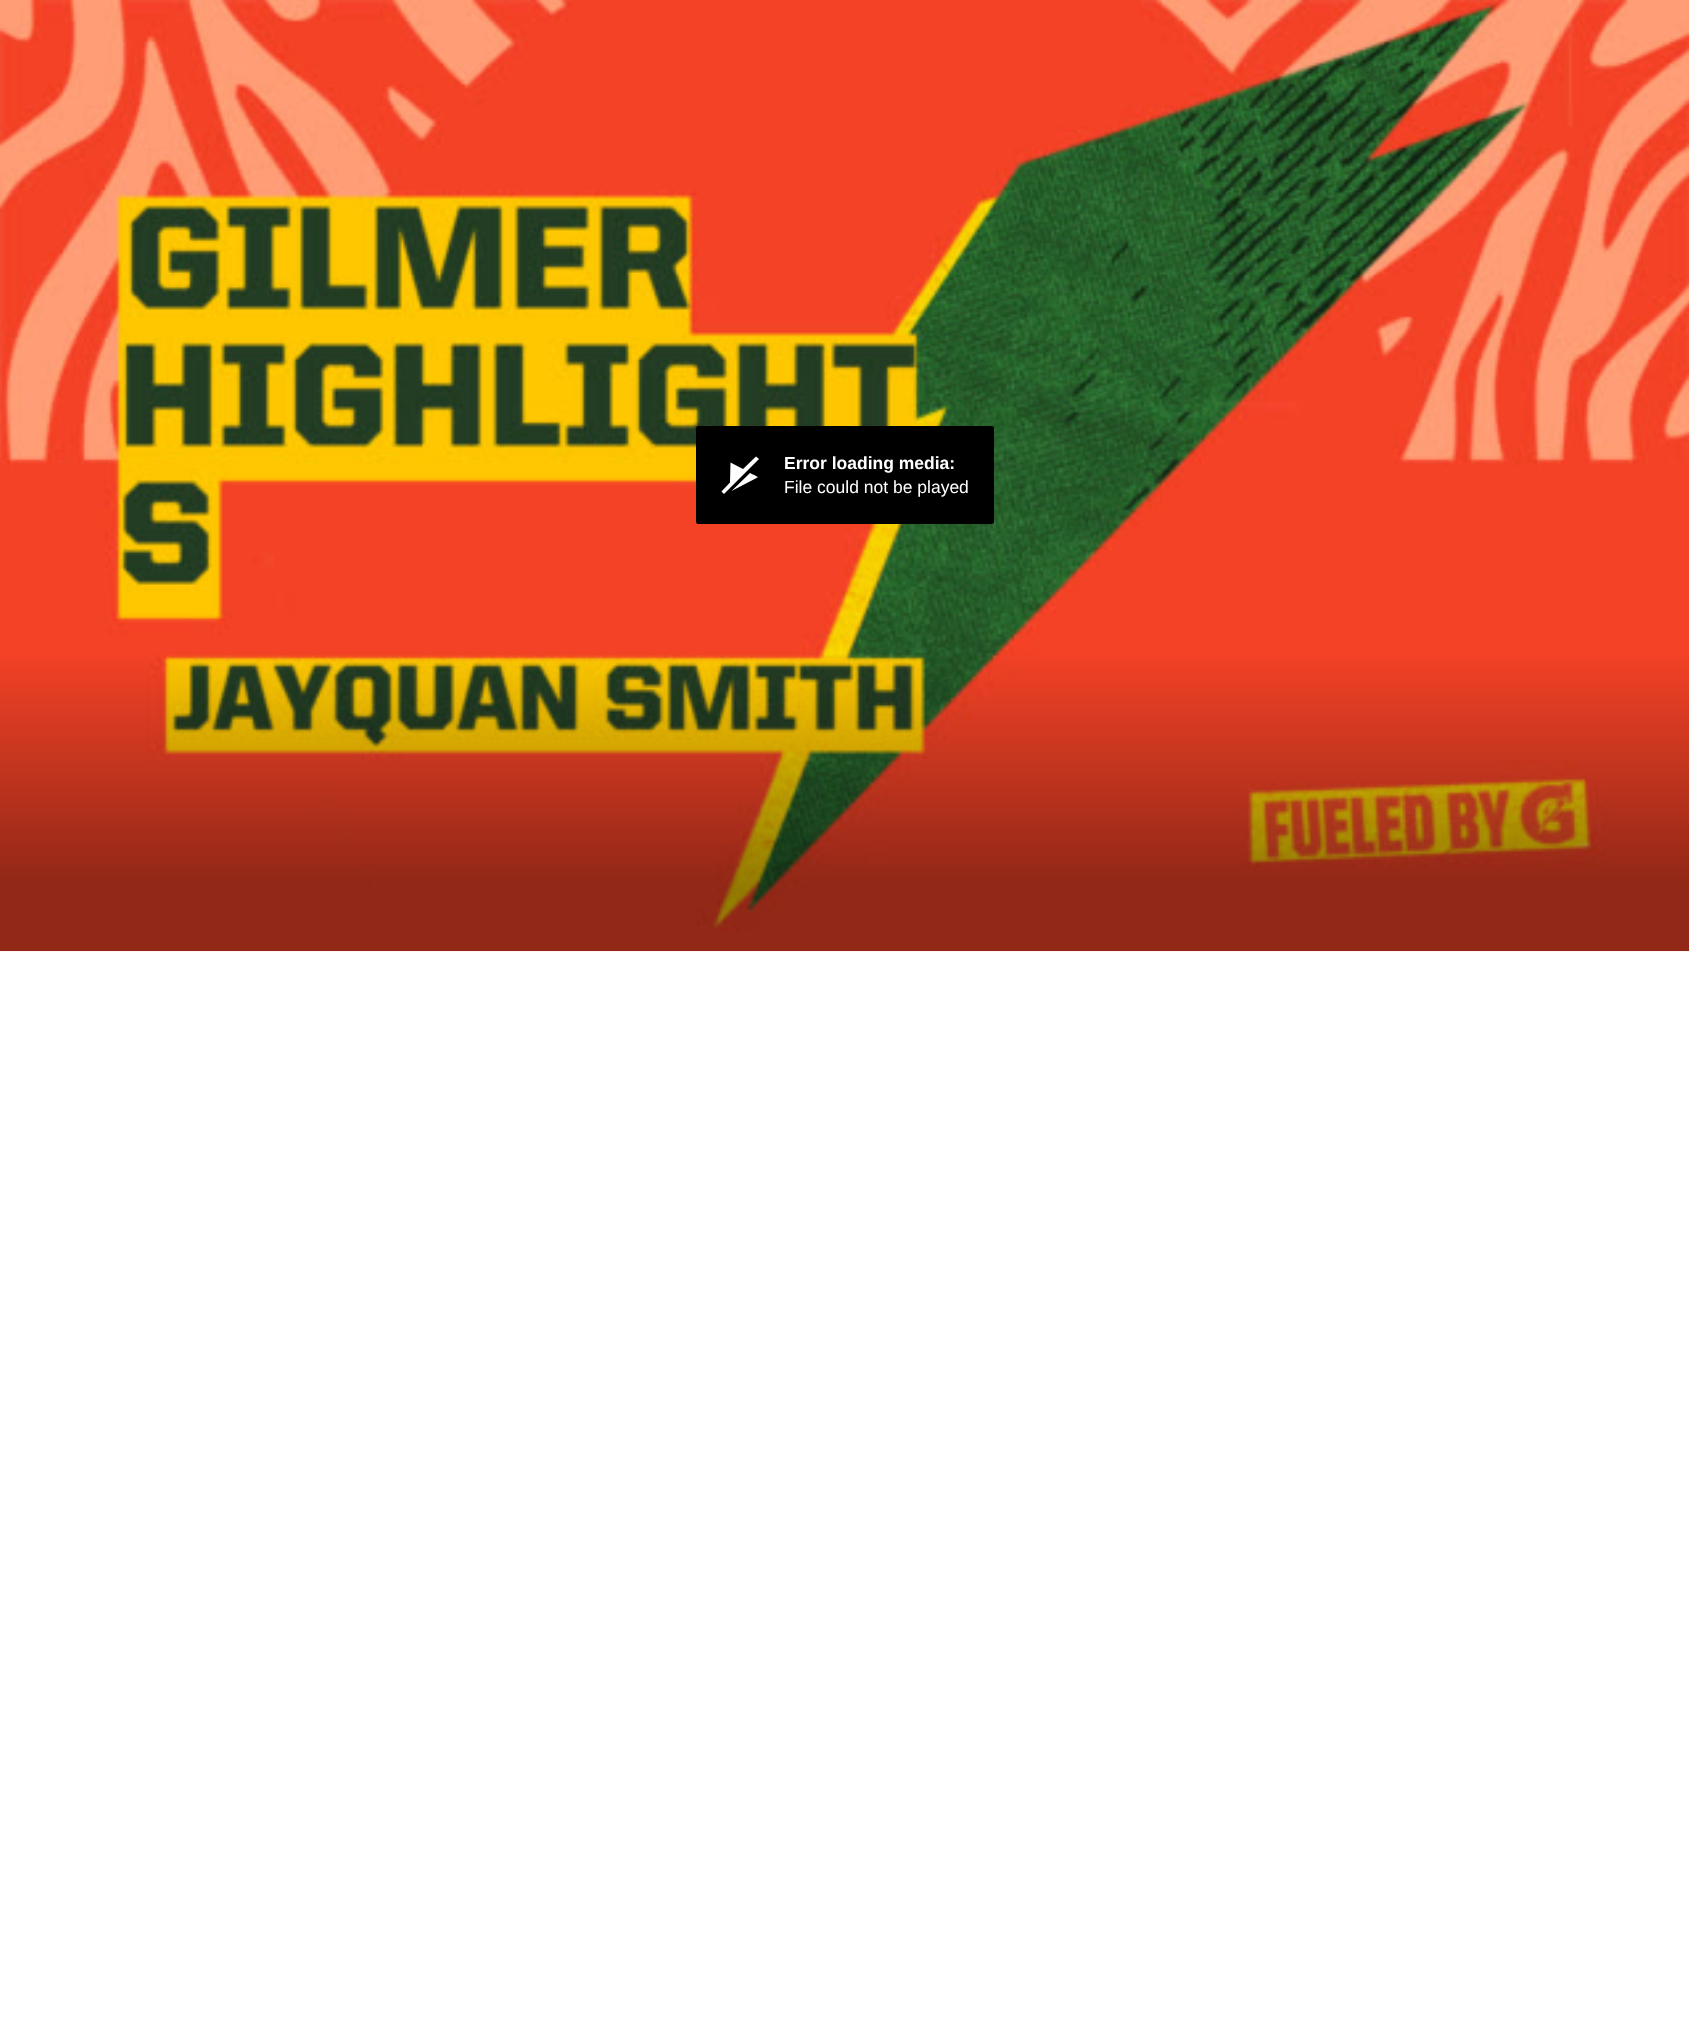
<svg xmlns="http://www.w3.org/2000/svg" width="1689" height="2021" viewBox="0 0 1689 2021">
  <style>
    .t1 { font: bold 17.5px Liberation Sans; fill: #fff; }
    .t2 { font: 17.5px Liberation Sans; fill: #fff; }
  </style>
  <rect width="100%" height="100%" fill="#fff"/>
  <image x="0" y="0" width="1689" height="952" href="images/1.png"/>
  <rect x="696" y="426" width="298" height="98" rx="2.5" fill="#000"/>
  <path d="M757.5 477.5L731.5 491L750 473C757 476.5 758.5 477 757.5 477.5ZM756 456.5L743 469L730.5 462.5L730 482.5L721.5 491.5L724 494L759 459Z" fill="#fff"/>
  <text x="784" y="469" class="t1">Error loading media:</text>
  <text x="784" y="493" class="t2">File could not be played</text>
</svg>
